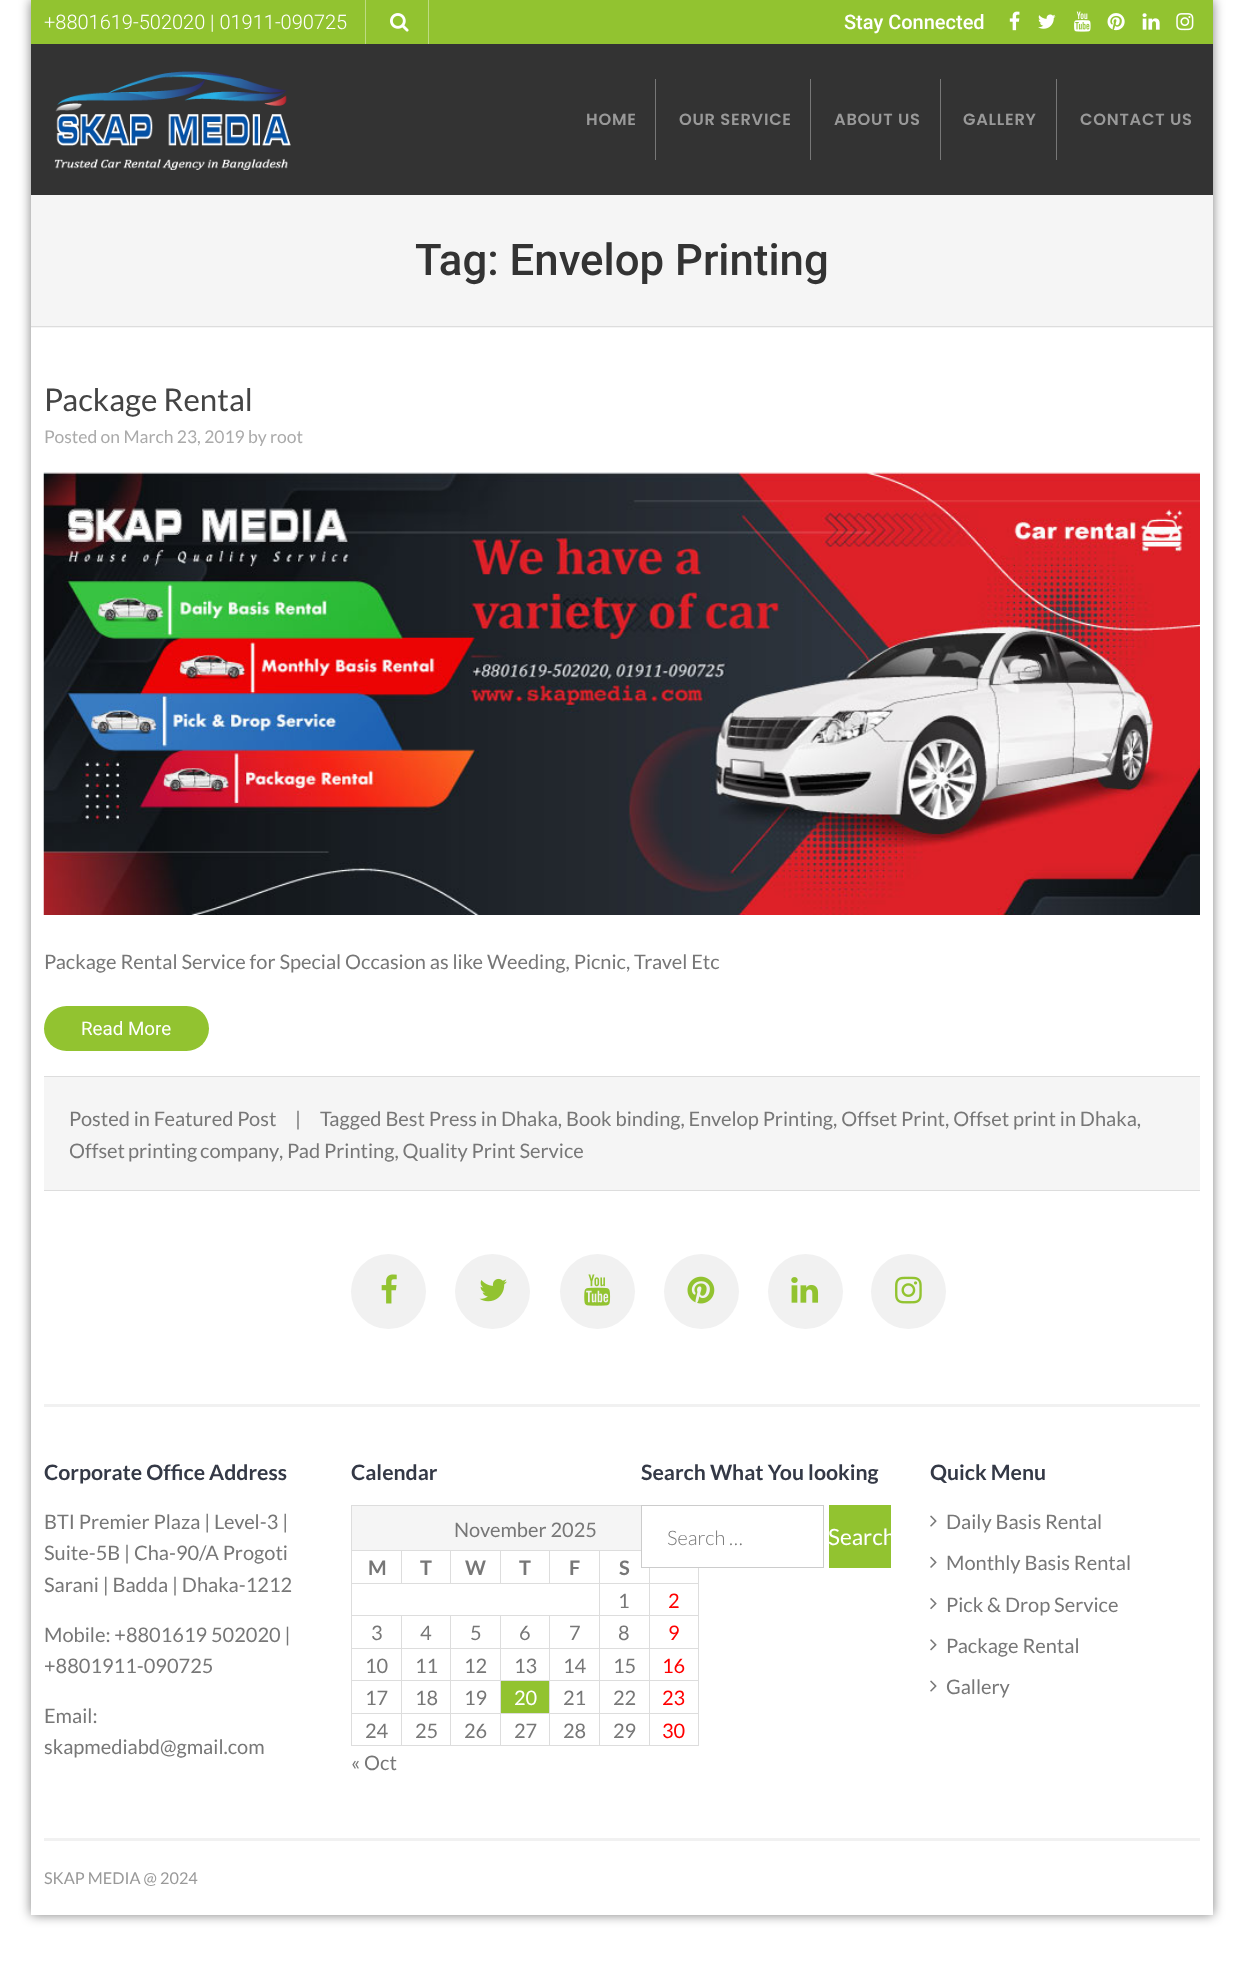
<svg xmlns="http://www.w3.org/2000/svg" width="1243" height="1967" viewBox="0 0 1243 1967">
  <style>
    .t1 { font: 300 20px Roboto; fill: #fff; }
    .t2 { font: 500 20px Roboto; fill: #fff; }
    .t3 { font: 600 16.25px Poppins; letter-spacing: 0.75px; fill: #999; }
    .t4 { font: 500 43.75px Roboto; fill: #333; }
    .t5 { font: 31.25px Lato; fill: #444; }
    .t6 { font: 17.5px Lato; fill: #aaa; }
    .t7 { font: 20px Lato; fill: #777; }
    .t8 { font: 18.75px Roboto; fill: #fff; }
    .t9 { font: bold 21.25px Lato; fill: #343946; }
    .t10 { font: bold 20px Lato; fill: #777; }
    .t11 { font: 20px Lato; fill: #f00; }
    .t12 { font: 20px Lato; fill: #fff; }
    .t13 { font: 300 20px Lato; fill: #777; }
    .t14 { font: 22.5px Lato; fill: #fff; }
    .t15 { font: 16.25px Lato; fill: #999; }
  </style>
  <defs>
    <clipPath id="clip1"><rect x="829" y="1505" width="62" height="63"/></clipPath>
  </defs>
  <rect width="100%" height="100%" fill="#fff"/>
  <rect x="31" y="0" width="1182" height="1915" fill="#00000080" filter="blur(6px)"/>
  <rect x="31" y="328" width="1182" height="1587" fill="#fff"/>
  <rect x="31" y="0" width="1182" height="44" fill="#92c330"/>
  <rect x="365" y="0" width="1" height="44" fill="#bedb83"/>
  <text x="44" y="29" class="t1">+8801619-502020 | 01911-090725</text>
  <rect x="428" y="0" width="1" height="44" fill="#bedb83"/>
  <image x="390" y="13" width="19" height="19" href="images/1.png"/>
  <text x="844" y="29" class="t2">Stay Connected</text>
  <image x="1009" y="11" width="11" height="20" href="images/2.png"/>
  <image x="1038" y="14" width="18" height="15" href="images/3.png"/>
  <image x="1074" y="11" width="17" height="21" href="images/4.png"/>
  <image x="1107" y="13" width="18" height="18" href="images/5.png"/>
  <image x="1142" y="13" width="18" height="17" href="images/6.png"/>
  <image x="1176" y="13" width="18" height="18" href="images/7.png"/>
  <rect x="31" y="44" width="1182" height="151" fill="#333"/>
  <image x="54" y="71" width="237" height="99" href="images/8.png"/>
  <rect x="655" y="79" width="1" height="81" fill="#777"/>
  <text x="586" y="125" class="t3">HOME</text>
  <rect x="810" y="79" width="1" height="81" fill="#777"/>
  <text x="679" y="125" class="t3">OUR SERVICE</text>
  <rect x="940" y="79" width="1" height="81" fill="#777"/>
  <text x="834" y="125" class="t3">ABOUT US</text>
  <rect x="1056" y="79" width="1" height="81" fill="#777"/>
  <text x="963" y="125" class="t3">GALLERY</text>
  <text x="1080" y="125" class="t3">CONTACT US</text>
  <rect x="31" y="195" width="1182" height="133" fill="#f5f5f5"/>
  <rect x="31" y="326" width="1182" height="1" fill="#ddd"/>
  <text x="415" y="275" class="t4">Tag: Envelop Printing</text>
  <text x="44" y="411" class="t5">Package Rental</text>
  <text x="44" y="443" class="t6">Posted on March 23, 2019 by root</text>
  <image x="43" y="472" width="1157" height="443" href="images/9.png"/>
  <text x="44" y="969" class="t7">Package Rental Service for Special Occasion as like Weeding, Picnic, Travel Etc</text>
  <rect x="44" y="1006" width="165" height="45" rx="22.5" fill="#92c330"/>
  <text x="81" y="1035" class="t8">Read More</text>
  <rect x="44" y="1077" width="1156" height="113" fill="#f5f5f5"/>
  <rect x="44" y="1076" width="1156" height="1" fill="#ddd"/>
  <rect x="44" y="1190" width="1156" height="1" fill="#ddd"/>
  <text x="69" y="1126" class="t7">Posted in Featured Post</text>
  <text x="295" y="1126" class="t7">|</text>
  <text x="320" y="1126" class="t7">Tagged Best Press in Dhaka, Book binding, Envelop Printing, Offset Print, Offset print in Dhaka,</text>
  <text x="69" y="1158" word-spacing="-1" class="t7">Offset printing company</text>
  <text x="279" y="1158" class="t7">, Pad Printing, Quality Print Service</text>
  <rect x="44" y="1404" width="1156" height="3" fill="#f1f1f1"/>
  <circle cx="388.5" cy="1291.5" r="37.5" fill="#f1f1f1"/>
  <image x="381" y="1274" width="16" height="30" href="images/10.png"/>
  <circle cx="492.5" cy="1291.5" r="37.5" fill="#f1f1f1"/>
  <image x="479" y="1278" width="28" height="24" href="images/11.png"/>
  <circle cx="597.5" cy="1291.5" r="37.5" fill="#f1f1f1"/>
  <image x="584" y="1274" width="27" height="32" href="images/12.png"/>
  <circle cx="701.5" cy="1291.5" r="37.5" fill="#f1f1f1"/>
  <image x="687" y="1276" width="28" height="28" href="images/13.png"/>
  <circle cx="805.5" cy="1291.5" r="37.5" fill="#f1f1f1"/>
  <image x="791" y="1277" width="28" height="26" href="images/14.png"/>
  <circle cx="908.5" cy="1291.5" r="37.5" fill="#f1f1f1"/>
  <image x="895" y="1276" width="27" height="28" href="images/15.png"/>
  <text x="44" y="1480" class="t9">Corporate Office Address</text>
  <text x="44" y="1529" class="t7">BTI Premier Plaza | Level-3 |</text>
  <text x="44" y="1560" class="t7">Suite-5B | Cha-90/A Progoti</text>
  <text x="44" y="1592" class="t7">Sarani | Badda | Dhaka-1212</text>
  <text x="44" y="1642" class="t7">Mobile: +8801619 502020 |</text>
  <text x="44" y="1673" class="t7">+8801911-090725</text>
  <text x="44" y="1723" class="t7">Email:</text>
  <text x="44" y="1754" class="t7">skapmediabd@gmail.com</text>
  <text x="351" y="1480" class="t9">Calendar</text>
  <rect x="352" y="1506" width="289" height="44" fill="#f5f5f5"/>
  <rect x="351" y="1505" width="290" height="1" fill="#ddd"/>
  <rect x="351" y="1505" width="1" height="45" fill="#ddd"/>
  <text x="454" y="1537" class="t7">November 2025</text>
  <rect x="599" y="1550" width="42" height="1" fill="#ddd"/>
  <rect x="649" y="1583" width="50" height="1" fill="#ddd"/>
  <rect x="649" y="1615" width="50" height="1" fill="#ddd"/>
  <rect x="649" y="1648" width="50" height="1" fill="#ddd"/>
  <rect x="649" y="1680" width="50" height="1" fill="#ddd"/>
  <rect x="649" y="1713" width="50" height="1" fill="#ddd"/>
  <rect x="698" y="1713" width="1" height="33" fill="#ddd"/>
  <rect x="649" y="1745" width="50" height="1" fill="#ddd"/>
  <rect x="649" y="1713" width="1" height="33" fill="#ddd"/>
  <rect x="599" y="1713" width="51" height="1" fill="#ddd"/>
  <rect x="649" y="1680" width="1" height="34" fill="#ddd"/>
  <rect x="599" y="1680" width="51" height="1" fill="#ddd"/>
  <rect x="649" y="1648" width="1" height="33" fill="#ddd"/>
  <rect x="599" y="1648" width="51" height="1" fill="#ddd"/>
  <rect x="649" y="1615" width="1" height="34" fill="#ddd"/>
  <rect x="599" y="1615" width="51" height="1" fill="#ddd"/>
  <rect x="649" y="1583" width="1" height="33" fill="#ddd"/>
  <rect x="599" y="1583" width="51" height="1" fill="#ddd"/>
  <rect x="599" y="1745" width="51" height="1" fill="#ddd"/>
  <rect x="599" y="1713" width="1" height="33" fill="#ddd"/>
  <rect x="549" y="1713" width="51" height="1" fill="#ddd"/>
  <rect x="599" y="1680" width="1" height="34" fill="#ddd"/>
  <rect x="549" y="1680" width="51" height="1" fill="#ddd"/>
  <rect x="599" y="1648" width="1" height="33" fill="#ddd"/>
  <rect x="549" y="1648" width="51" height="1" fill="#ddd"/>
  <rect x="599" y="1615" width="1" height="34" fill="#ddd"/>
  <rect x="549" y="1615" width="51" height="1" fill="#ddd"/>
  <rect x="599" y="1583" width="1" height="33" fill="#ddd"/>
  <rect x="351" y="1583" width="249" height="1" fill="#ddd"/>
  <rect x="599" y="1550" width="1" height="34" fill="#ddd"/>
  <rect x="549" y="1550" width="51" height="1" fill="#ddd"/>
  <rect x="549" y="1550" width="1" height="34" fill="#ddd"/>
  <rect x="500" y="1550" width="50" height="1" fill="#ddd"/>
  <rect x="500" y="1550" width="1" height="34" fill="#ddd"/>
  <rect x="450" y="1550" width="51" height="1" fill="#ddd"/>
  <rect x="450" y="1550" width="1" height="34" fill="#ddd"/>
  <rect x="401" y="1550" width="50" height="1" fill="#ddd"/>
  <rect x="401" y="1550" width="1" height="34" fill="#ddd"/>
  <rect x="351" y="1550" width="52" height="1" fill="#ddd"/>
  <rect x="549" y="1745" width="51" height="1" fill="#ddd"/>
  <rect x="549" y="1713" width="1" height="33" fill="#ddd"/>
  <rect x="500" y="1713" width="50" height="1" fill="#ddd"/>
  <rect x="549" y="1680" width="1" height="34" fill="#ddd"/>
  <rect x="500" y="1680" width="50" height="1" fill="#ddd"/>
  <rect x="549" y="1648" width="1" height="33" fill="#ddd"/>
  <rect x="500" y="1648" width="50" height="1" fill="#ddd"/>
  <rect x="549" y="1615" width="1" height="34" fill="#ddd"/>
  <rect x="500" y="1615" width="50" height="1" fill="#ddd"/>
  <rect x="500" y="1745" width="50" height="1" fill="#ddd"/>
  <rect x="500" y="1713" width="1" height="33" fill="#ddd"/>
  <rect x="450" y="1713" width="51" height="1" fill="#ddd"/>
  <rect x="500" y="1680" width="1" height="34" fill="#ddd"/>
  <rect x="450" y="1680" width="51" height="1" fill="#ddd"/>
  <rect x="500" y="1648" width="1" height="33" fill="#ddd"/>
  <rect x="450" y="1648" width="51" height="1" fill="#ddd"/>
  <rect x="500" y="1615" width="1" height="34" fill="#ddd"/>
  <rect x="450" y="1615" width="51" height="1" fill="#ddd"/>
  <rect x="450" y="1745" width="51" height="1" fill="#ddd"/>
  <rect x="450" y="1713" width="1" height="33" fill="#ddd"/>
  <rect x="401" y="1713" width="50" height="1" fill="#ddd"/>
  <rect x="450" y="1680" width="1" height="34" fill="#ddd"/>
  <rect x="401" y="1680" width="50" height="1" fill="#ddd"/>
  <rect x="450" y="1648" width="1" height="33" fill="#ddd"/>
  <rect x="401" y="1648" width="50" height="1" fill="#ddd"/>
  <rect x="450" y="1615" width="1" height="34" fill="#ddd"/>
  <rect x="401" y="1615" width="50" height="1" fill="#ddd"/>
  <rect x="401" y="1745" width="50" height="1" fill="#ddd"/>
  <rect x="401" y="1713" width="1" height="33" fill="#ddd"/>
  <rect x="351" y="1713" width="52" height="1" fill="#ddd"/>
  <rect x="401" y="1680" width="1" height="34" fill="#ddd"/>
  <rect x="351" y="1680" width="52" height="1" fill="#ddd"/>
  <rect x="401" y="1648" width="1" height="33" fill="#ddd"/>
  <rect x="351" y="1648" width="52" height="1" fill="#ddd"/>
  <rect x="401" y="1615" width="1" height="34" fill="#ddd"/>
  <rect x="351" y="1615" width="52" height="1" fill="#ddd"/>
  <rect x="351" y="1745" width="52" height="1" fill="#ddd"/>
  <rect x="351" y="1713" width="1" height="33" fill="#ddd"/>
  <rect x="351" y="1680" width="1" height="34" fill="#ddd"/>
  <rect x="351" y="1648" width="1" height="33" fill="#ddd"/>
  <rect x="351" y="1615" width="1" height="34" fill="#ddd"/>
  <rect x="351" y="1583" width="1" height="33" fill="#ddd"/>
  <rect x="351" y="1550" width="1" height="34" fill="#ddd"/>
  <text x="368" y="1575" class="t10">M</text>
  <text x="420" y="1575" class="t10">T</text>
  <text x="465" y="1575" class="t10">W</text>
  <text x="519" y="1575" class="t10">T</text>
  <text x="569" y="1575" class="t10">F</text>
  <text x="619" y="1575" class="t10">S</text>
  <rect x="649" y="1568" width="1" height="16" fill="#ddd"/>
  <text x="618" y="1608" class="t7">1</text>
  <rect x="698" y="1680" width="1" height="34" fill="#ddd"/>
  <rect x="698" y="1648" width="1" height="33" fill="#ddd"/>
  <rect x="698" y="1615" width="1" height="34" fill="#ddd"/>
  <rect x="698" y="1568" width="1" height="48" fill="#ddd"/>
  <text x="668" y="1608" class="t11">2</text>
  <text x="371" y="1640" class="t7">3</text>
  <text x="420" y="1640" class="t7">4</text>
  <text x="470" y="1640" class="t7">5</text>
  <text x="519" y="1640" class="t7">6</text>
  <text x="569" y="1640" class="t7">7</text>
  <text x="618" y="1640" class="t7">8</text>
  <text x="668" y="1640" class="t11">9</text>
  <text x="365" y="1673" class="t7">10</text>
  <text x="415" y="1673" class="t7">11</text>
  <text x="464" y="1673" class="t7">12</text>
  <text x="514" y="1673" class="t7">13</text>
  <text x="563" y="1673" class="t7">14</text>
  <text x="613" y="1673" class="t7">15</text>
  <text x="662" y="1673" class="t11">16</text>
  <text x="365" y="1705" class="t7">17</text>
  <text x="415" y="1705" class="t7">18</text>
  <text x="464" y="1705" class="t7">19</text>
  <rect x="501" y="1681" width="48" height="32" fill="#92c330"/>
  <text x="514" y="1705" class="t12">20</text>
  <text x="563" y="1705" class="t7">21</text>
  <text x="613" y="1705" class="t7">22</text>
  <text x="662" y="1705" class="t11">23</text>
  <text x="365" y="1738" class="t7">24</text>
  <text x="415" y="1738" class="t7">25</text>
  <text x="464" y="1738" class="t7">26</text>
  <text x="514" y="1738" class="t7">27</text>
  <text x="563" y="1738" class="t7">28</text>
  <text x="613" y="1738" class="t7">29</text>
  <text x="662" y="1738" class="t11">30</text>
  <text x="351" y="1770" class="t7">« Oct</text>
  <text x="641" y="1480" class="t9">Search What You looking</text>
  <rect x="641.5" y="1505.5" width="182" height="62" fill="none" stroke="#ccc"/>
  <text x="667" y="1545" class="t13">Search …</text>
  <rect x="829" y="1505" width="62" height="63" fill="#92c330"/>
  <g clip-path="url(#clip1)">
    <text x="828" y="1545" class="t14">Search</text>
  </g>
  <text x="930" y="1480" class="t9">Quick Menu</text>
  <image x="930" y="1515" width="7" height="12" href="images/16.png"/>
  <text x="946" y="1529" class="t7">Daily Basis Rental</text>
  <image x="930" y="1556" width="7" height="12" href="images/17.png"/>
  <text x="946" y="1570" class="t7">Monthly Basis Rental</text>
  <image x="930" y="1598" width="7" height="12" href="images/18.png"/>
  <text x="946" y="1612" class="t7">Pick &amp; Drop Service</text>
  <image x="930" y="1639" width="7" height="12" href="images/19.png"/>
  <text x="946" y="1653" class="t7">Package Rental</text>
  <image x="930" y="1680" width="7" height="12" href="images/16.png"/>
  <text x="946" y="1694" class="t7">Gallery</text>
  <rect x="44" y="1838" width="1156" height="3" fill="#f1f1f1"/>
  <text x="44" y="1884" class="t15">SKAP MEDIA @ 2024</text>
</svg>
